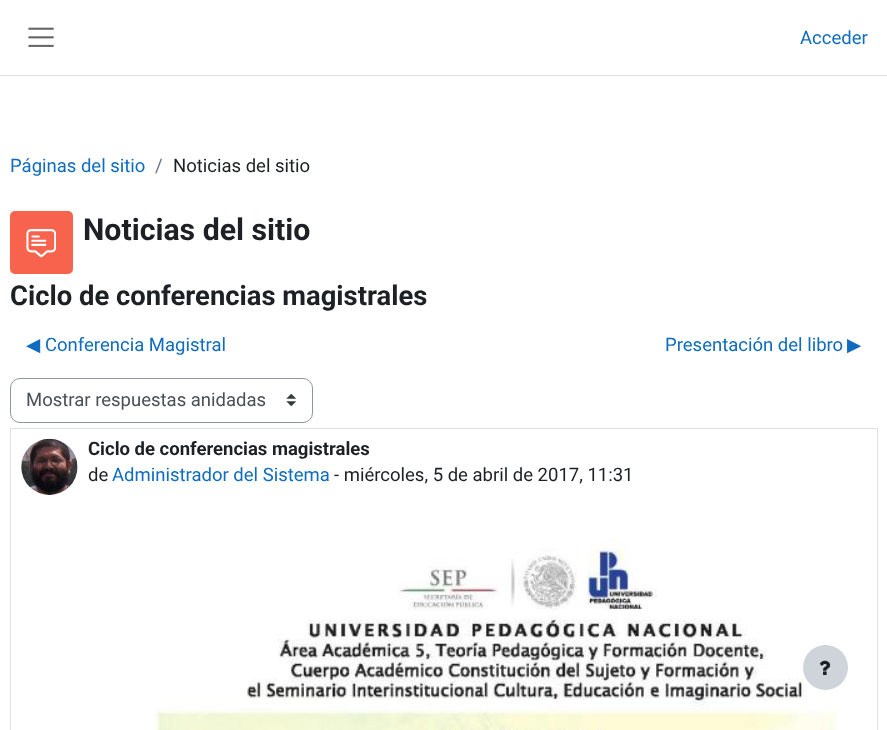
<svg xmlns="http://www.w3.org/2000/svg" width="887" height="730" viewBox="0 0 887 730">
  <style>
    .t1 { font: 18.5px Roboto; fill: #0f6cbf; }
    .t2 { font: 18.5px Roboto; fill: #6a737b; }
    .t3 { font: 18.5px Roboto; fill: #1d2125; }
    .t4 { font: bold 30.25px Roboto; fill: #1d2125; }
    .t5 { font: bold 27.4px Roboto; fill: #1d2125; }
    .t6 { font: 18.5px DejaVu Sans; fill: #0f6cbf; }
    .t7 { font: 18.5px Roboto; fill: #495057; }
    .t8 { font: bold 18.5px Roboto; fill: #1d2125; }
  </style>
  <rect width="100%" height="100%" fill="#fff"/>
  <rect x="0" y="75" width="887" height="1" fill="#dee2e6"/>
  <image x="28" y="27" width="26" height="20" href="images/1.png"/>
  <text x="800" y="44" class="t1">Acceder</text>
  <text x="10" y="172" class="t1">Páginas del sitio</text>
  <text x="155" y="172" class="t2">/</text>
  <text x="173" y="172" class="t3">Noticias del sitio</text>
  <rect x="10" y="211" width="63" height="63" rx="5" fill="#f7634d"/>
  <image x="26" y="229" width="30" height="29" href="images/2.png"/>
  <text x="83" y="240" class="t4">Noticias del sitio</text>
  <text x="10" y="305" class="t5">Ciclo de conferencias magistrales</text>
  <text x="26" y="351" class="t6">◀︎</text>
  <text x="45" y="351" class="t1">Conferencia Magistral</text>
  <text x="665" y="351" class="t1">Presentación del libro</text>
  <text x="847" y="351" class="t6">▶︎</text>
  <image x="286" y="394" width="10" height="12" href="images/3.png"/>
  <rect x="10.5" y="378.5" width="302" height="44" rx="9.5" fill="none" stroke="#8f959e"/>
  <text x="26" y="406" class="t7">Mostrar respuestas anidadas</text>
  <rect x="10.5" y="428.5" width="867" height="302" fill="none" stroke="#dee2e6"/>
  <image x="21" y="438" width="57" height="57" href="images/4.png"/>
  <text x="88" y="455" class="t8">Ciclo de conferencias magistrales</text>
  <text x="88" y="481" class="t3">de</text>
  <text x="112" y="481" class="t1">Administrador del Sistema</text>
  <text x="334" y="481" class="t3">- miércoles, 5 de abril de 2017, 11:31</text>
  <image x="154" y="539" width="684" height="191" href="images/5.png"/>
  <circle cx="825.5" cy="667.5" r="22.5" fill="#ced4da"/>
  <image x="819" y="660" width="12" height="15" href="images/6.png"/>
</svg>
